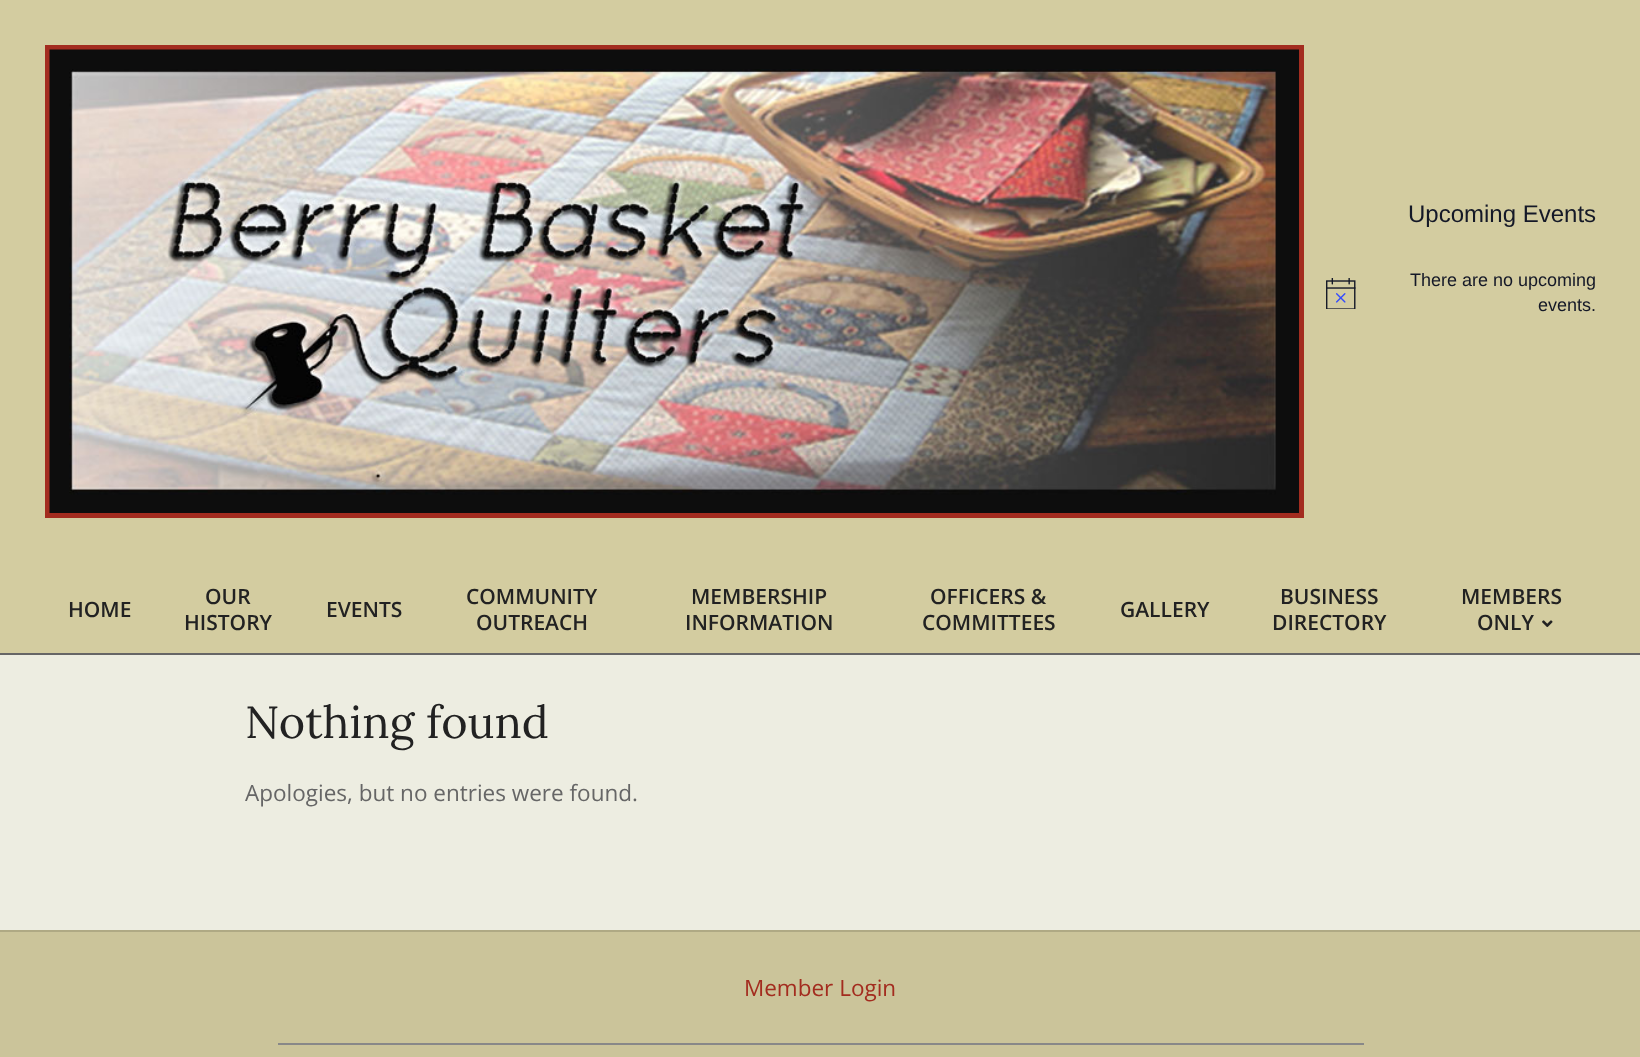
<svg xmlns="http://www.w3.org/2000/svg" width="1640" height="1057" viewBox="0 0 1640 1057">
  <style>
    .t1 { font: 24px Liberation Sans; fill: #141827; }
    .t2 { font: 18px Liberation Sans; fill: #141827; }
    .t3 { font: 600 21px Open Sans; fill: #222; }
    .t4 { font: 45px Lora; fill: #222; }
    .t5 { font: 22.5px Open Sans; fill: #666; }
    .t6 { font: 22.5px Open Sans; fill: #a32c1f; }
  </style>
  <rect width="100%" height="100%" fill="#d3cca0"/>
  <rect x="0" y="653" width="1640" height="2" fill="#666"/>
  <rect x="45" y="45" width="1259" height="473" fill="#a32c1f"/>
  <image x="49" y="49" width="1250" height="464" href="images/1.png"/>
  <text x="1408" y="222" class="t1">Upcoming Events</text>
  <image x="1326" y="278" width="30" height="31" href="images/2.png"/>
  <text x="1410" y="286" class="t2">There are no upcoming</text>
  <text x="1538" y="311" class="t2">events.</text>
  <text x="68" y="617" class="t3">HOME</text>
  <text x="205" y="604" class="t3">OUR</text>
  <text x="184" y="630" class="t3">HISTORY</text>
  <text x="326" y="617" class="t3">EVENTS</text>
  <text x="466" y="604" class="t3">COMMUNITY</text>
  <text x="476" y="630" class="t3">OUTREACH</text>
  <text x="691" y="604" class="t3">MEMBERSHIP</text>
  <text x="685" y="630" class="t3">INFORMATION</text>
  <text x="930" y="604" class="t3">OFFICERS &amp;</text>
  <text x="922" y="630" class="t3">COMMITTEES</text>
  <text x="1120" y="617" class="t3">GALLERY</text>
  <text x="1280" y="604" class="t3">BUSINESS</text>
  <text x="1272" y="630" class="t3">DIRECTORY</text>
  <text x="1461" y="604" class="t3">MEMBERS</text>
  <text x="1477" y="630" class="t3">ONLY</text>
  <image x="1542" y="620" width="11" height="7" href="images/3.png"/>
  <rect x="0" y="655" width="1640" height="275" fill="#edede1"/>
  <text x="245" y="738" class="t4">Nothing found</text>
  <text x="245" y="801" class="t5">Apologies, but no entries were found.</text>
  <rect x="0" y="932" width="1640" height="125" fill="#cbc49a"/>
  <rect x="278" y="1043" width="1086" height="2" fill="#888"/>
  <rect x="0" y="930" width="1640" height="2" fill="#afa984"/>
  <text x="744" y="996" class="t6">Member Login</text>
</svg>
